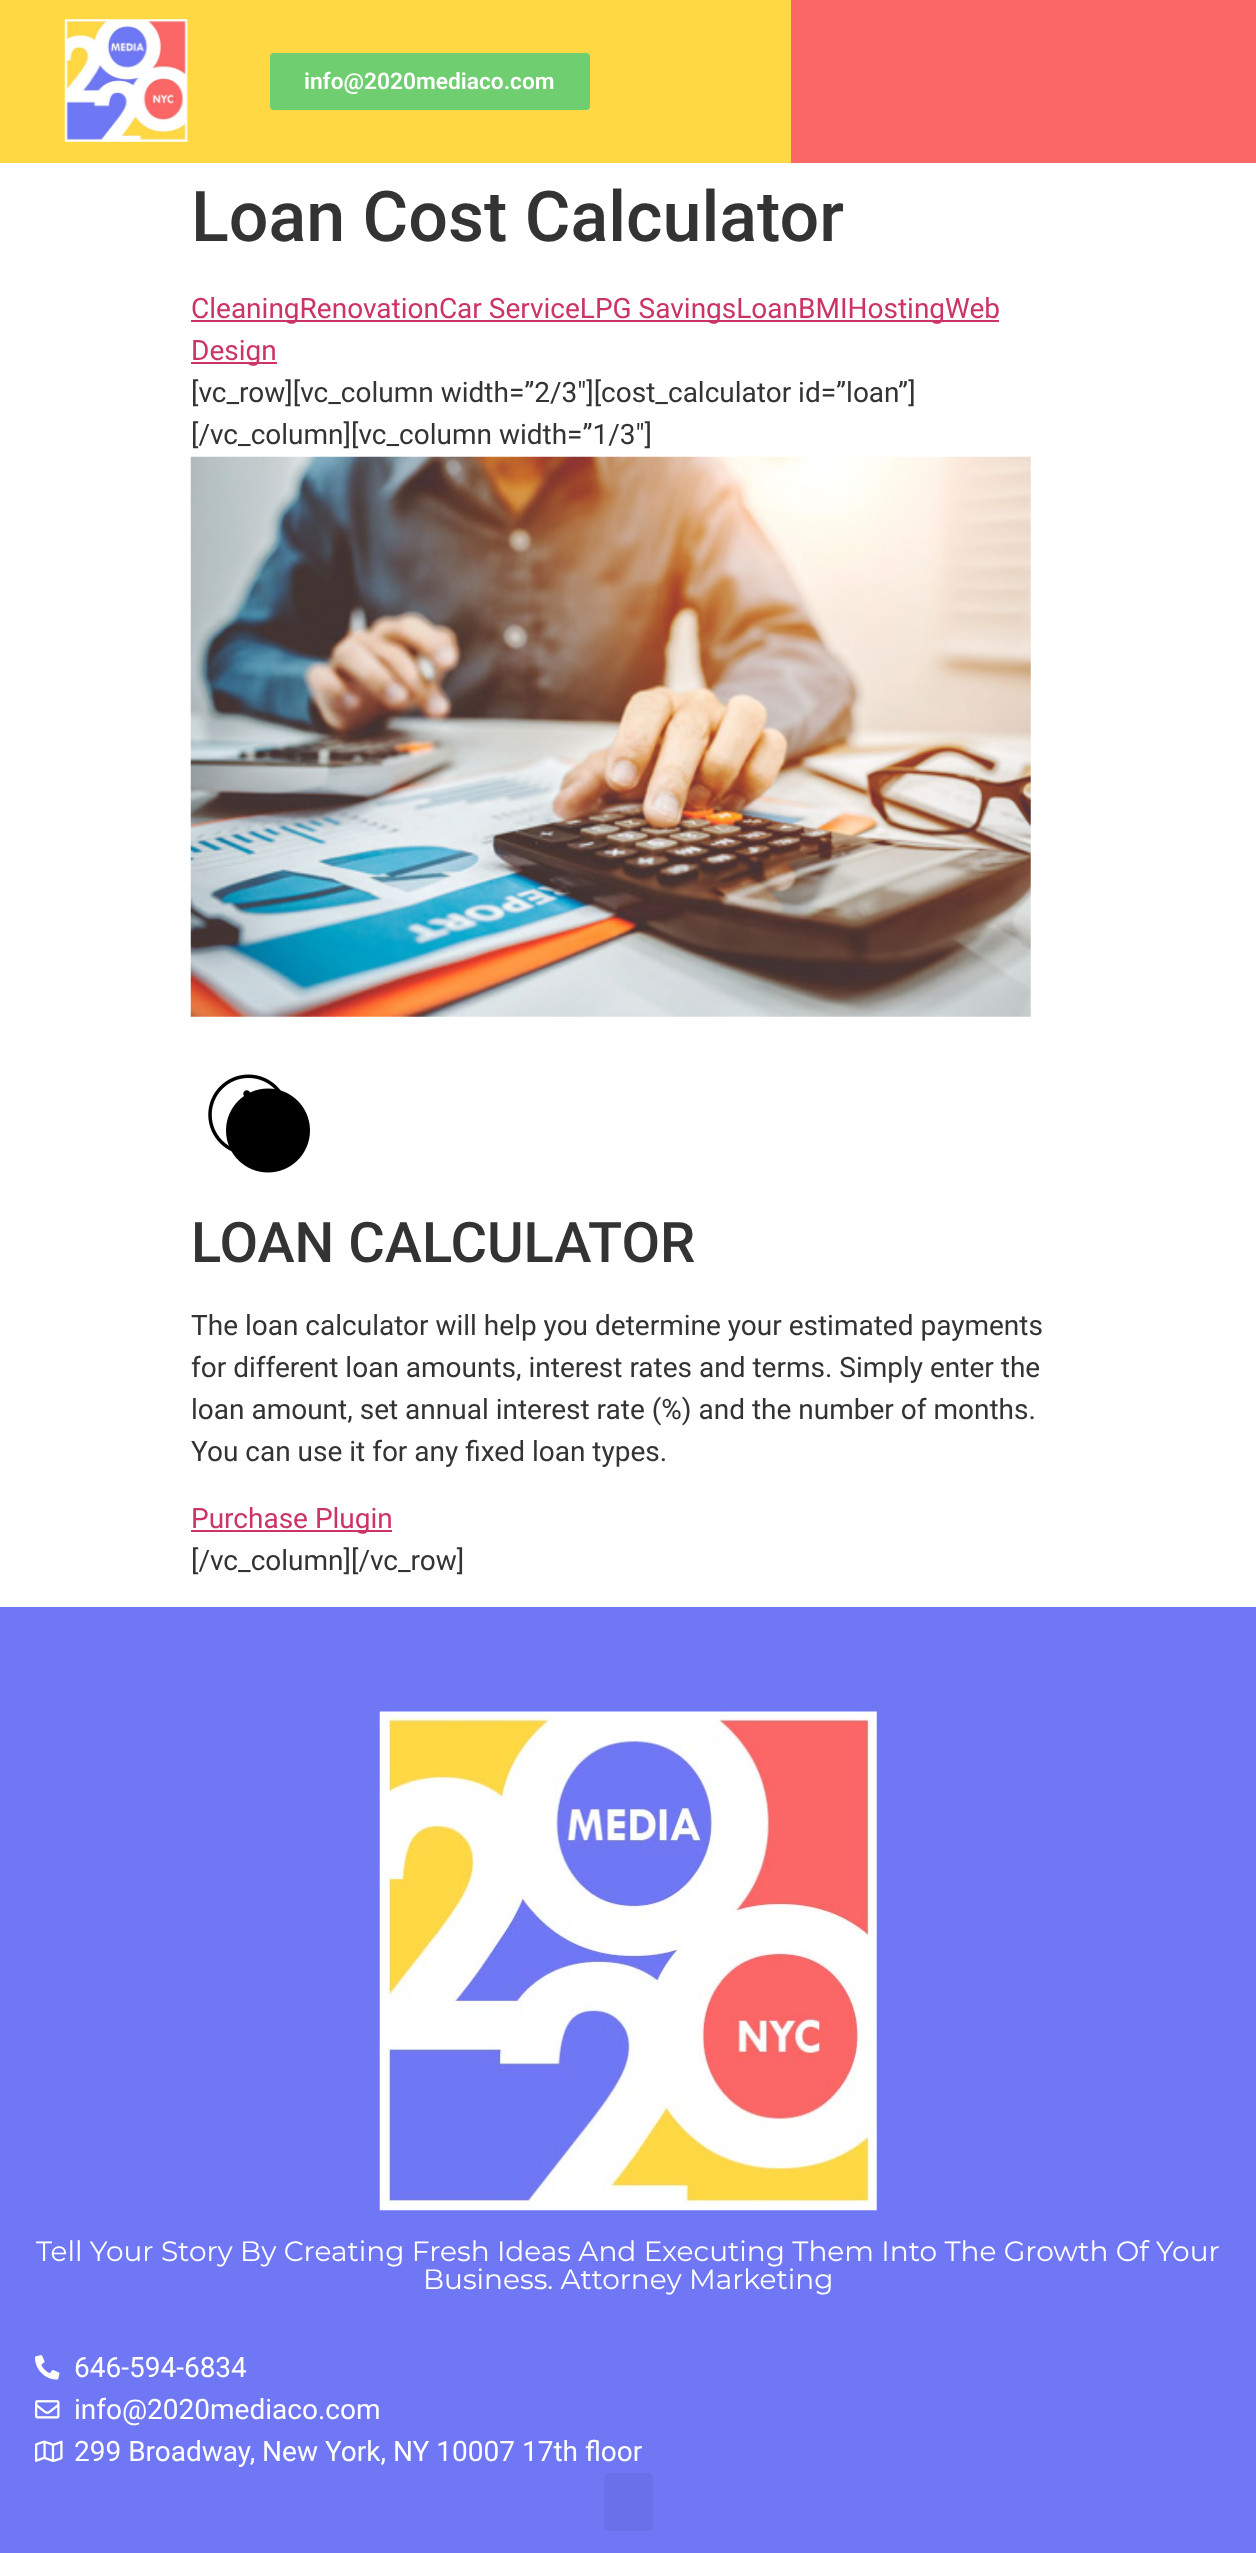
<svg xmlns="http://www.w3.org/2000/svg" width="1256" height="2553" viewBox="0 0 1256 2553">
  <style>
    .t1 { font: 600 22.75px Roboto; fill: #fff; }
    .t2 { font: 500 70px Roboto; fill: #333; }
    .t3 { font: 28px Roboto; fill: #c36; }
    .t4 { font: 28px Roboto; fill: #333; }
    .t5 { font: 500 56px Roboto; fill: #333; }
    .t6 { font: 28px Montserrat; fill: #fff; }
    .t7 { font: 28px Roboto; fill: #fff; }
  </style>
  <rect width="100%" height="100%" fill="#fff"/>
  <rect x="0" y="0" width="791" height="163" fill="#ffd844"/>
  <image x="64" y="19" width="124" height="123" href="images/1.png"/>
  <rect x="270" y="53" width="320" height="57" rx="4" fill="#6fce70"/>
  <text x="304" y="89" class="t1">info@2020mediaco.com</text>
  <rect x="791" y="0" width="465" height="163" fill="#fb6666"/>
  <text x="191" y="241" class="t2">Loan Cost Calculator</text>
  <rect x="191" y="320" width="808" height="2" fill="#c36"/>
  <text x="191" y="318" class="t3">CleaningRenovationCar ServiceLPG SavingsLoanBMIHostingWeb</text>
  <rect x="191" y="362" width="86" height="2" fill="#c36"/>
  <text x="191" y="360" class="t3">Design</text>
  <text x="191" y="402" class="t4">[vc_row][vc_column width=”2/3″][cost_calculator id=”loan”]</text>
  <text x="191" y="444" class="t4">[/vc_column][vc_column width=”1/3″]</text>
  <image x="190" y="456" width="841" height="561" href="images/2.png"/>
  <image x="208" y="1074" width="102" height="99" href="images/3.png"/>
  <text x="191" y="1262" class="t5">LOAN CALCULATOR</text>
  <text x="191" y="1335" class="t4">The loan calculator will help you determine your estimated payments</text>
  <text x="191" y="1377" class="t4">for different loan amounts, interest rates and terms. Simply enter the</text>
  <text x="191" y="1419" class="t4">loan amount, set annual interest rate (%) and the number of months.</text>
  <text x="191" y="1461" class="t4">You can use it for any fixed loan types.</text>
  <rect x="191" y="1530" width="201" height="2" fill="#c36"/>
  <text x="191" y="1528" class="t3">Purchase Plugin</text>
  <text x="191" y="1570" class="t4">[/vc_column][/vc_row]</text>
  <rect x="0" y="1607" width="1256" height="946" fill="#6f77f4"/>
  <image x="379" y="1711" width="498" height="500" href="images/4.png"/>
  <text x="36" y="2261" class="t6">Tell Your Story By Creating Fresh Ideas And Executing Them Into The Growth Of Your</text>
  <text x="423" y="2289" class="t6">Business. Attorney Marketing</text>
  <image x="35" y="2355" width="25" height="25" href="images/5.png"/>
  <text x="74" y="2377" class="t7">646-594-6834</text>
  <image x="35" y="2400" width="25" height="19" href="images/6.png"/>
  <text x="74" y="2419" class="t7">info@2020mediaco.com</text>
  <image x="35" y="2440" width="28" height="22" href="images/7.png"/>
  <text x="74" y="2461" class="t7">299 Broadway, New York, NY 10007 17th floor</text>
  <rect x="604" y="2473" width="49" height="58" rx="5" fill="#6971e8"/>
</svg>
